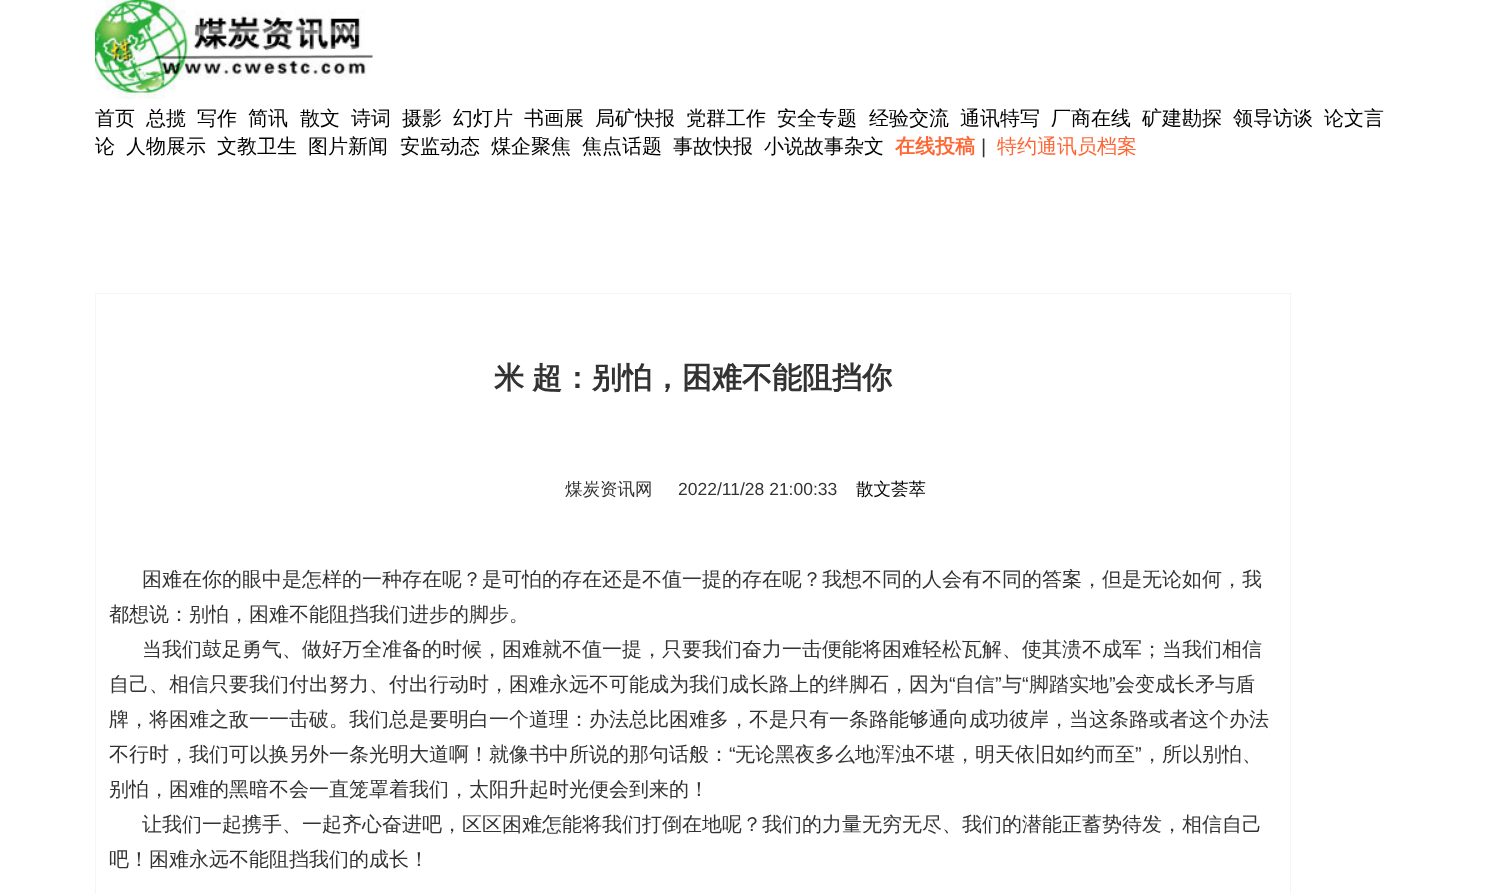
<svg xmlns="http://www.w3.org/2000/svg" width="1489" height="894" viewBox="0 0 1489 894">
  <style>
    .t1 { font: 500 20px WenQuanYi Zen Hei; fill: #000; }
    .t2 { font: bold 20px WenQuanYi Zen Hei; fill: #ff6634; }
    .t3 { font: 20px Liberation Sans; fill: #333; }
    .t4 { font: 500 20px WenQuanYi Zen Hei; fill: #ff6634; }
    .t5 { font: bold 30px WenQuanYi Zen Hei; fill: #333; }
    .t6 { font: 500 17.5px WenQuanYi Zen Hei; fill: #333; }
    .t7 { font: 17.5px Liberation Sans; fill: #333; }
    .t8 { font: 500 17.5px WenQuanYi Zen Hei; fill: #000; }
    .t9 { font: 500 20px WenQuanYi Zen Hei; fill: #333; }
  </style>
  <rect width="100%" height="100%" fill="#fff"/>
  <image x="95" y="0" width="278" height="99" href="images/1.png"/>
  <text x="95" y="125" class="t1">首页</text>
  <text x="146" y="125" class="t1">总揽</text>
  <text x="197" y="125" class="t1">写作</text>
  <text x="248" y="125" class="t1">简讯</text>
  <text x="300" y="125" class="t1">散文</text>
  <text x="351" y="125" class="t1">诗词</text>
  <text x="402" y="125" class="t1">摄影</text>
  <text x="453" y="125" class="t1">幻灯片</text>
  <text x="524" y="125" class="t1">书画展</text>
  <text x="595" y="125" class="t1">局矿快报</text>
  <text x="686" y="125" class="t1">党群工作</text>
  <text x="777" y="125" class="t1">安全专题</text>
  <text x="869" y="125" class="t1">经验交流</text>
  <text x="960" y="125" class="t1">通讯特写</text>
  <text x="1051" y="125" class="t1">厂商在线</text>
  <text x="1142" y="125" class="t1">矿建勘探</text>
  <text x="1233" y="125" class="t1">领导访谈</text>
  <text x="1324" y="125" class="t1">论文言</text>
  <text x="95" y="153" class="t1">论</text>
  <text x="126" y="153" class="t1">人物展示</text>
  <text x="217" y="153" class="t1">文教卫生</text>
  <text x="308" y="153" class="t1">图片新闻</text>
  <text x="400" y="153" class="t1">安监动态</text>
  <text x="491" y="153" class="t1">煤企聚焦</text>
  <text x="582" y="153" class="t1">焦点话题</text>
  <text x="673" y="153" class="t1">事故快报</text>
  <text x="764" y="153" class="t1">小说故事杂文</text>
  <text x="895" y="153" class="t2">在线投稿</text>
  <text x="981" y="153" class="t3">|</text>
  <text x="997" y="153" class="t4">特约通讯员档案</text>
  <rect x="95" y="293" width="1196" height="1" fill="#f5f5f5"/>
  <rect x="1290" y="293" width="1" height="601" fill="#f5f5f5"/>
  <rect x="95" y="293" width="1" height="601" fill="#f5f5f5"/>
  <text x="494" y="388" class="t5">米</text>
  <text x="532" y="388" class="t5">超：别怕，困难不能阻挡你</text>
  <text x="565" y="495" class="t6">煤炭资讯网</text>
  <text x="678" y="495" class="t7">2022/11/28 21:00:33</text>
  <text x="856" y="495" class="t8">散文荟萃</text>
  <text x="142" y="586" class="t9">困难在你的眼中是怎样的一种存在呢？是可怕的存在还是不值一提的存在呢？我想不同的人会有不同的答案，但是无论如何，我</text>
  <text x="109" y="621" class="t9">都想说：别怕，困难不能阻挡我们进步的脚步。</text>
  <text x="142" y="656" class="t9">当我们鼓足勇气、做好万全准备的时候，困难就不值一提，只要我们奋力一击便能将困难轻松瓦解、使其溃不成军；当我们相信</text>
  <text x="109" y="691" class="t9">自己、相信只要我们付出努力、付出行动时，困难永远不可能成为我们成长路上的绊脚石，因为</text>
  <text x="949" y="691" class="t3">“</text>
  <text x="955" y="691" class="t9">自信</text>
  <text x="995" y="691" class="t3">”</text>
  <text x="1002" y="691" class="t9">与</text>
  <text x="1022" y="691" class="t3">“</text>
  <text x="1029" y="691" class="t9">脚踏实地</text>
  <text x="1109" y="691" class="t3">”</text>
  <text x="1115" y="691" class="t9">会变成长矛与盾</text>
  <text x="109" y="726" class="t9">牌，将困难之敌一一击破。我们总是要明白一个道理：办法总比困难多，不是只有一条路能够通向成功彼岸，当这条路或者这个办法</text>
  <text x="109" y="761" class="t9">不行时，我们可以换另外一条光明大道啊！就像书中所说的那句话般：</text>
  <text x="729" y="761" class="t3">“</text>
  <text x="735" y="761" class="t9">无论黑夜多么地浑浊不堪，明天依旧如约而至</text>
  <text x="1135" y="761" class="t3">”</text>
  <text x="1142" y="761" class="t9">，所以别怕、</text>
  <text x="109" y="796" class="t9">别怕，困难的黑暗不会一直笼罩着我们，太阳升起时光便会到来的！</text>
  <text x="142" y="831" class="t9">让我们一起携手、一起齐心奋进吧，区区困难怎能将我们打倒在地呢？我们的力量无穷无尽、我们的潜能正蓄势待发，相信自己</text>
  <text x="109" y="866" class="t9">吧！困难永远不能阻挡我们的成长！</text>
</svg>
